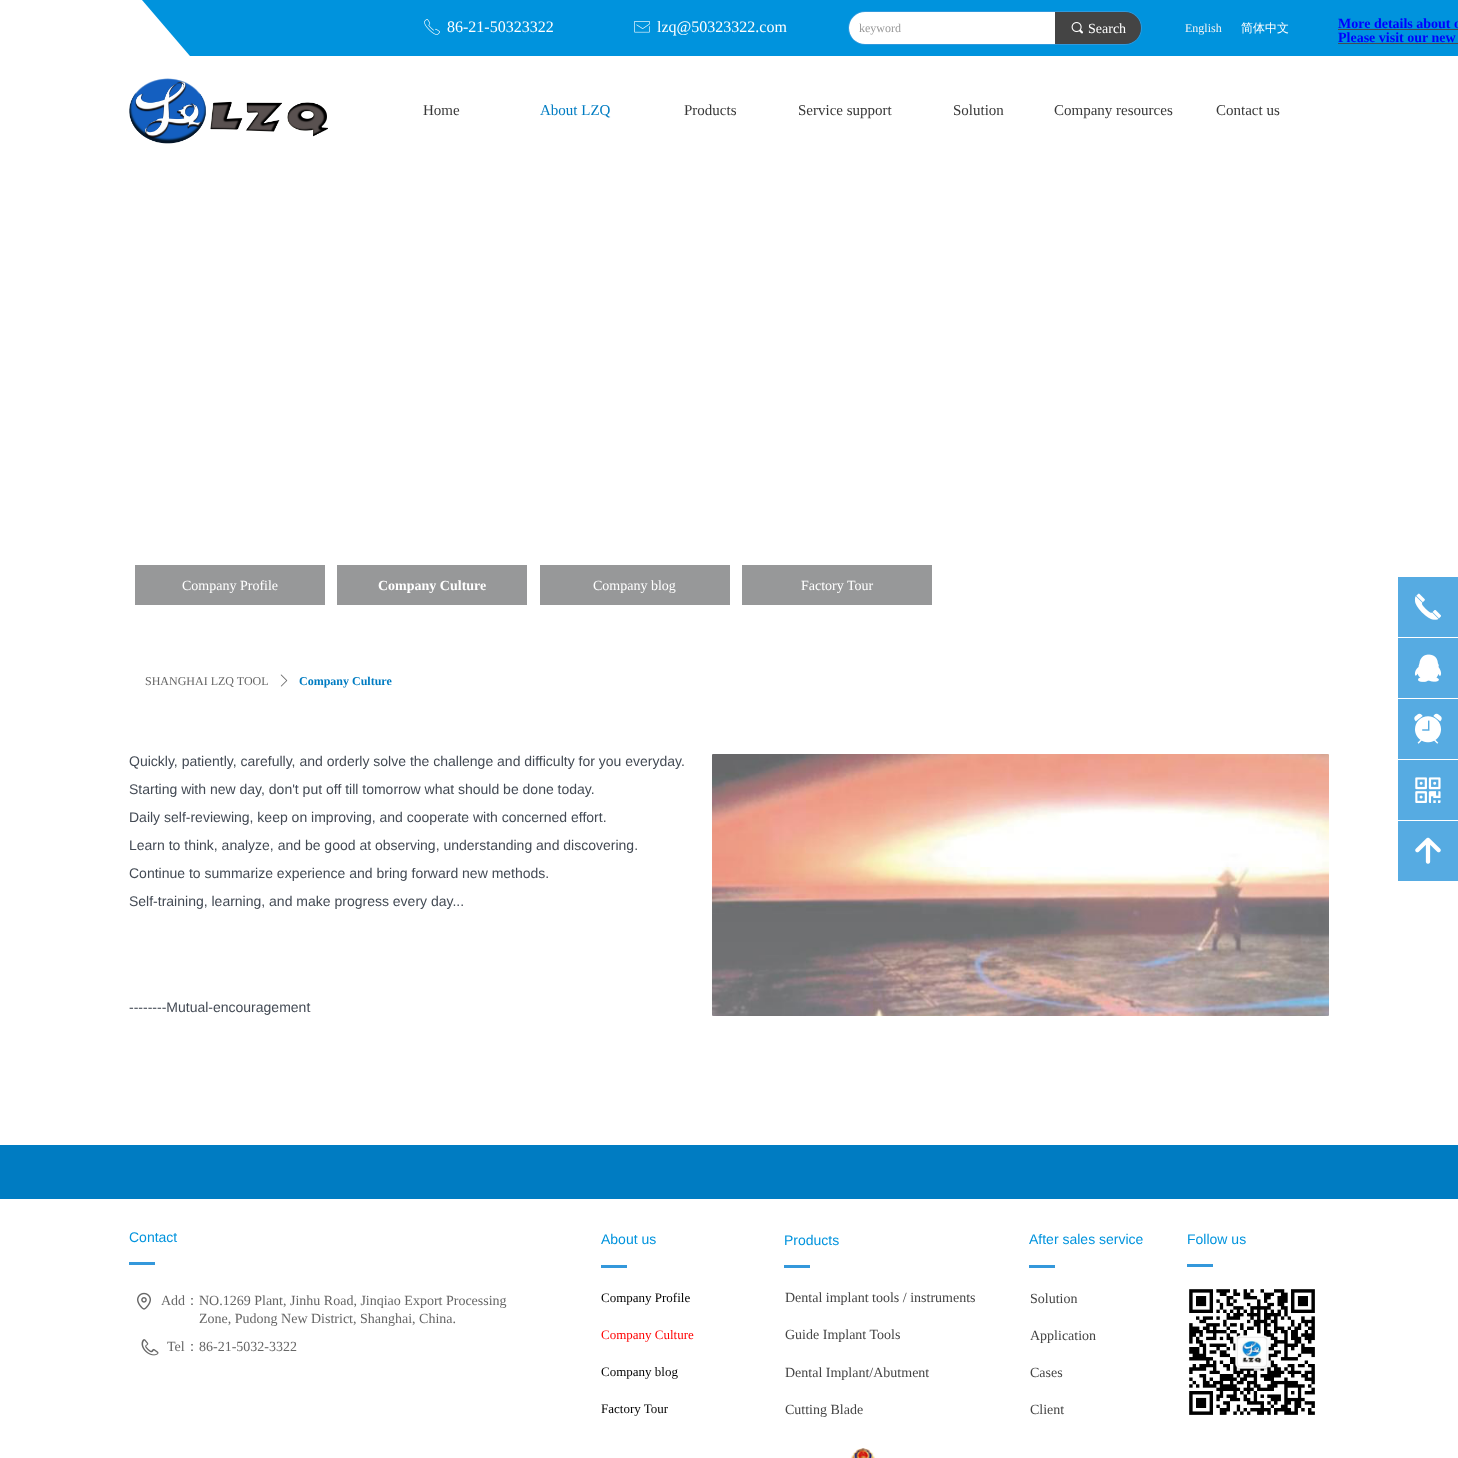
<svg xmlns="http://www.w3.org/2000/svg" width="1458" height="1458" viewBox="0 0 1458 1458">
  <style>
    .t1 { font: 16px Liberation Serif; fill: #fff; }
    .t2 { font: 12px Liberation Serif; fill: #999; }
    .t3 { font: 14px Liberation Serif; fill: #fff; }
    .t4 { font: 12px Liberation Serif; fill: #f3f3f3; }
    .t5 { font: 500 12px WenQuanYi Zen Hei; fill: #fff; }
    .t6 { font: bold 14px Liberation Serif; fill: #00f; }
    .t7 { font: 15px Liberation Serif; fill: #383838; }
    .t8 { font: 15px Liberation Serif; fill: #007cc2; }
    .t9 { font: bold 14px Liberation Serif; fill: #fff; }
    .t10 { font: 12px Liberation Serif; fill: #666; }
    .t11 { font: bold 12px Liberation Serif; fill: #007cc2; }
    .t12 { font: 14px Liberation Sans; fill: #434a54; }
    .t13 { font: 14px Liberation Sans; fill: #0093dd; }
    .t14 { font: 14px Liberation Serif; fill: #666; }
    .t15 { font: 500 14px WenQuanYi Zen Hei; fill: #666; }
    .t16 { font: 13px Liberation Serif; fill: #000; }
    .t17 { font: 13px Liberation Serif; fill: #f00; }
    .t18 { font: 14px Liberation Serif; fill: #444; }
  </style>
  <rect width="100%" height="100%" fill="#fff"/>
  <image x="142" y="0" width="1316" height="56" href="images/1.png"/>
  <image x="424" y="19" width="16" height="16" href="images/2.png"/>
  <text x="447" y="32" class="t1">86-21-50323322</text>
  <image x="634" y="21" width="16" height="12" href="images/3.png"/>
  <text x="657" y="32" class="t1">lzq@50323322.com</text>
  <rect x="848.5" y="11.5" width="293" height="33" rx="16.5" fill="none" stroke="#3099dd"/>
  <path d="M865 12H1055V44H865C856 44 849 37 849 28C849 19 856 12 865 12Z" fill="#fff"/>
  <text x="859" y="32" class="t2">keyword</text>
  <path d="M1055 12H1125C1134 12 1141 19 1141 28C1141 37 1134 44 1125 44H1055Z" fill="#444"/>
  <image x="1071" y="22" width="12" height="12" href="images/4.png"/>
  <text x="1088" y="33" class="t3">Search</text>
  <text x="1185" y="32" class="t4">English</text>
  <text x="1241" y="32" class="t5">简体中文</text>
  <text x="1338" y="28" class="t6">More details about o</text>
  <rect x="1338" y="29" width="120" height="1" fill="#434a54"/>
  <text x="1338" y="42" class="t6">Please visit our new</text>
  <rect x="1338" y="43" width="120" height="1" fill="#434a54"/>
  <image x="129" y="78" width="199" height="66" href="images/5.png"/>
  <text x="423" y="115" class="t7">Home</text>
  <text x="540" y="115" class="t8">About LZQ</text>
  <text x="684" y="115" class="t7">Products</text>
  <text x="798" y="115" class="t7">Service support</text>
  <text x="953" y="115" class="t7">Solution</text>
  <text x="1054" y="115" class="t7">Company resources</text>
  <text x="1216" y="115" class="t7">Contact us</text>
  <rect x="135" y="565" width="190" height="40" fill="#979899"/>
  <text x="182" y="590" class="t3">Company Profile</text>
  <rect x="337" y="565" width="190" height="40" fill="#979899"/>
  <text x="378" y="590" class="t9">Company Culture</text>
  <rect x="540" y="565" width="190" height="40" fill="#979899"/>
  <text x="593" y="590" class="t3">Company blog</text>
  <rect x="742" y="565" width="190" height="40" fill="#979899"/>
  <text x="801" y="590" class="t3">Factory Tour</text>
  <text x="145" y="685" class="t10">SHANGHAI LZQ TOOL</text>
  <image x="280" y="674" width="8" height="13" href="images/6.png"/>
  <text x="299" y="685" class="t11">Company Culture</text>
  <text x="129" y="766" class="t12">Quickly, patiently, carefully, and orderly solve the challenge and difficulty for you everyday.</text>
  <text x="129" y="794" class="t12">Starting with new day, don't put off till tomorrow what should be done today.</text>
  <text x="129" y="822" class="t12">Daily self-reviewing, keep on improving, and cooperate with concerned effort.</text>
  <text x="129" y="850" class="t12">Learn to think, analyze, and be good at observing, understanding and discovering.</text>
  <text x="129" y="878" class="t12">Continue to summarize experience and bring forward new methods.</text>
  <text x="129" y="906" class="t12">Self-training, learning, and make progress every day...</text>
  <image x="712" y="754" width="617" height="262" href="images/7.png"/>
  <text x="129" y="1012" class="t12">--------Mutual-encouragement</text>
  <rect x="0" y="1145" width="1458" height="54" fill="#007cc2"/>
  <text x="129" y="1242" class="t13">Contact</text>
  <text x="601" y="1244" class="t13">About us</text>
  <text x="784" y="1245" class="t13">Products</text>
  <text x="1029" y="1244" class="t13">After sales service</text>
  <text x="1187" y="1244" class="t13">Follow us</text>
  <rect x="129" y="1262" width="26" height="3" fill="#3498db"/>
  <rect x="601" y="1265" width="26" height="3" fill="#3498db"/>
  <rect x="784" y="1265" width="26" height="3" fill="#3498db"/>
  <rect x="1029" y="1265" width="26" height="3" fill="#3498db"/>
  <rect x="1187" y="1264" width="26" height="3" fill="#3498db"/>
  <image x="137" y="1292" width="14" height="18" href="images/8.png"/>
  <text x="161" y="1305" class="t14">Add</text>
  <text x="185" y="1305" class="t15">：</text>
  <text x="199" y="1305" class="t14">NO.1269 Plant, Jinhu Road, Jinqiao Export Processing</text>
  <text x="199" y="1323" class="t14">Zone, Pudong New District, Shanghai, China.</text>
  <image x="141" y="1339" width="18" height="17" href="images/9.png"/>
  <text x="167" y="1351" class="t14">Tel</text>
  <text x="185" y="1351" class="t15">：</text>
  <text x="199" y="1351" class="t14">86-21-5032-3322</text>
  <text x="601" y="1302" class="t16">Company Profile</text>
  <text x="601" y="1339" class="t17">Company Culture</text>
  <text x="601" y="1376" class="t16">Company blog</text>
  <text x="601" y="1413" class="t16">Factory Tour</text>
  <text x="785" y="1302" class="t18">Dental implant tools / instruments</text>
  <text x="785" y="1339" class="t18">Guide Implant Tools</text>
  <text x="785" y="1377" class="t18">Dental Implant/Abutment</text>
  <text x="785" y="1414" class="t18">Cutting Blade</text>
  <text x="1030" y="1303" class="t18">Solution</text>
  <text x="1030" y="1340" class="t18">Application</text>
  <text x="1030" y="1377" class="t18">Cases</text>
  <text x="1030" y="1414" class="t18">Client</text>
  <image x="1189" y="1289" width="126" height="126" href="images/10.png"/>
  <image x="851" y="1448" width="24" height="10" href="images/11.png"/>
  <rect x="1398" y="577" width="60" height="60" fill="#56abe2"/>
  <image x="1414" y="593" width="27" height="27" href="images/12.png"/>
  <rect x="1398" y="638" width="60" height="60" fill="#56abe2"/>
  <image x="1414" y="654" width="28" height="28" href="images/13.png"/>
  <rect x="1398" y="699" width="60" height="60" fill="#56abe2"/>
  <image x="1414" y="713" width="28" height="31" href="images/14.png"/>
  <rect x="1398" y="760" width="60" height="60" fill="#56abe2"/>
  <image x="1415" y="777" width="26" height="26" href="images/15.png"/>
  <rect x="1398" y="821" width="60" height="60" fill="#56abe2"/>
  <image x="1415" y="837" width="26" height="27" href="images/16.png"/>
</svg>
